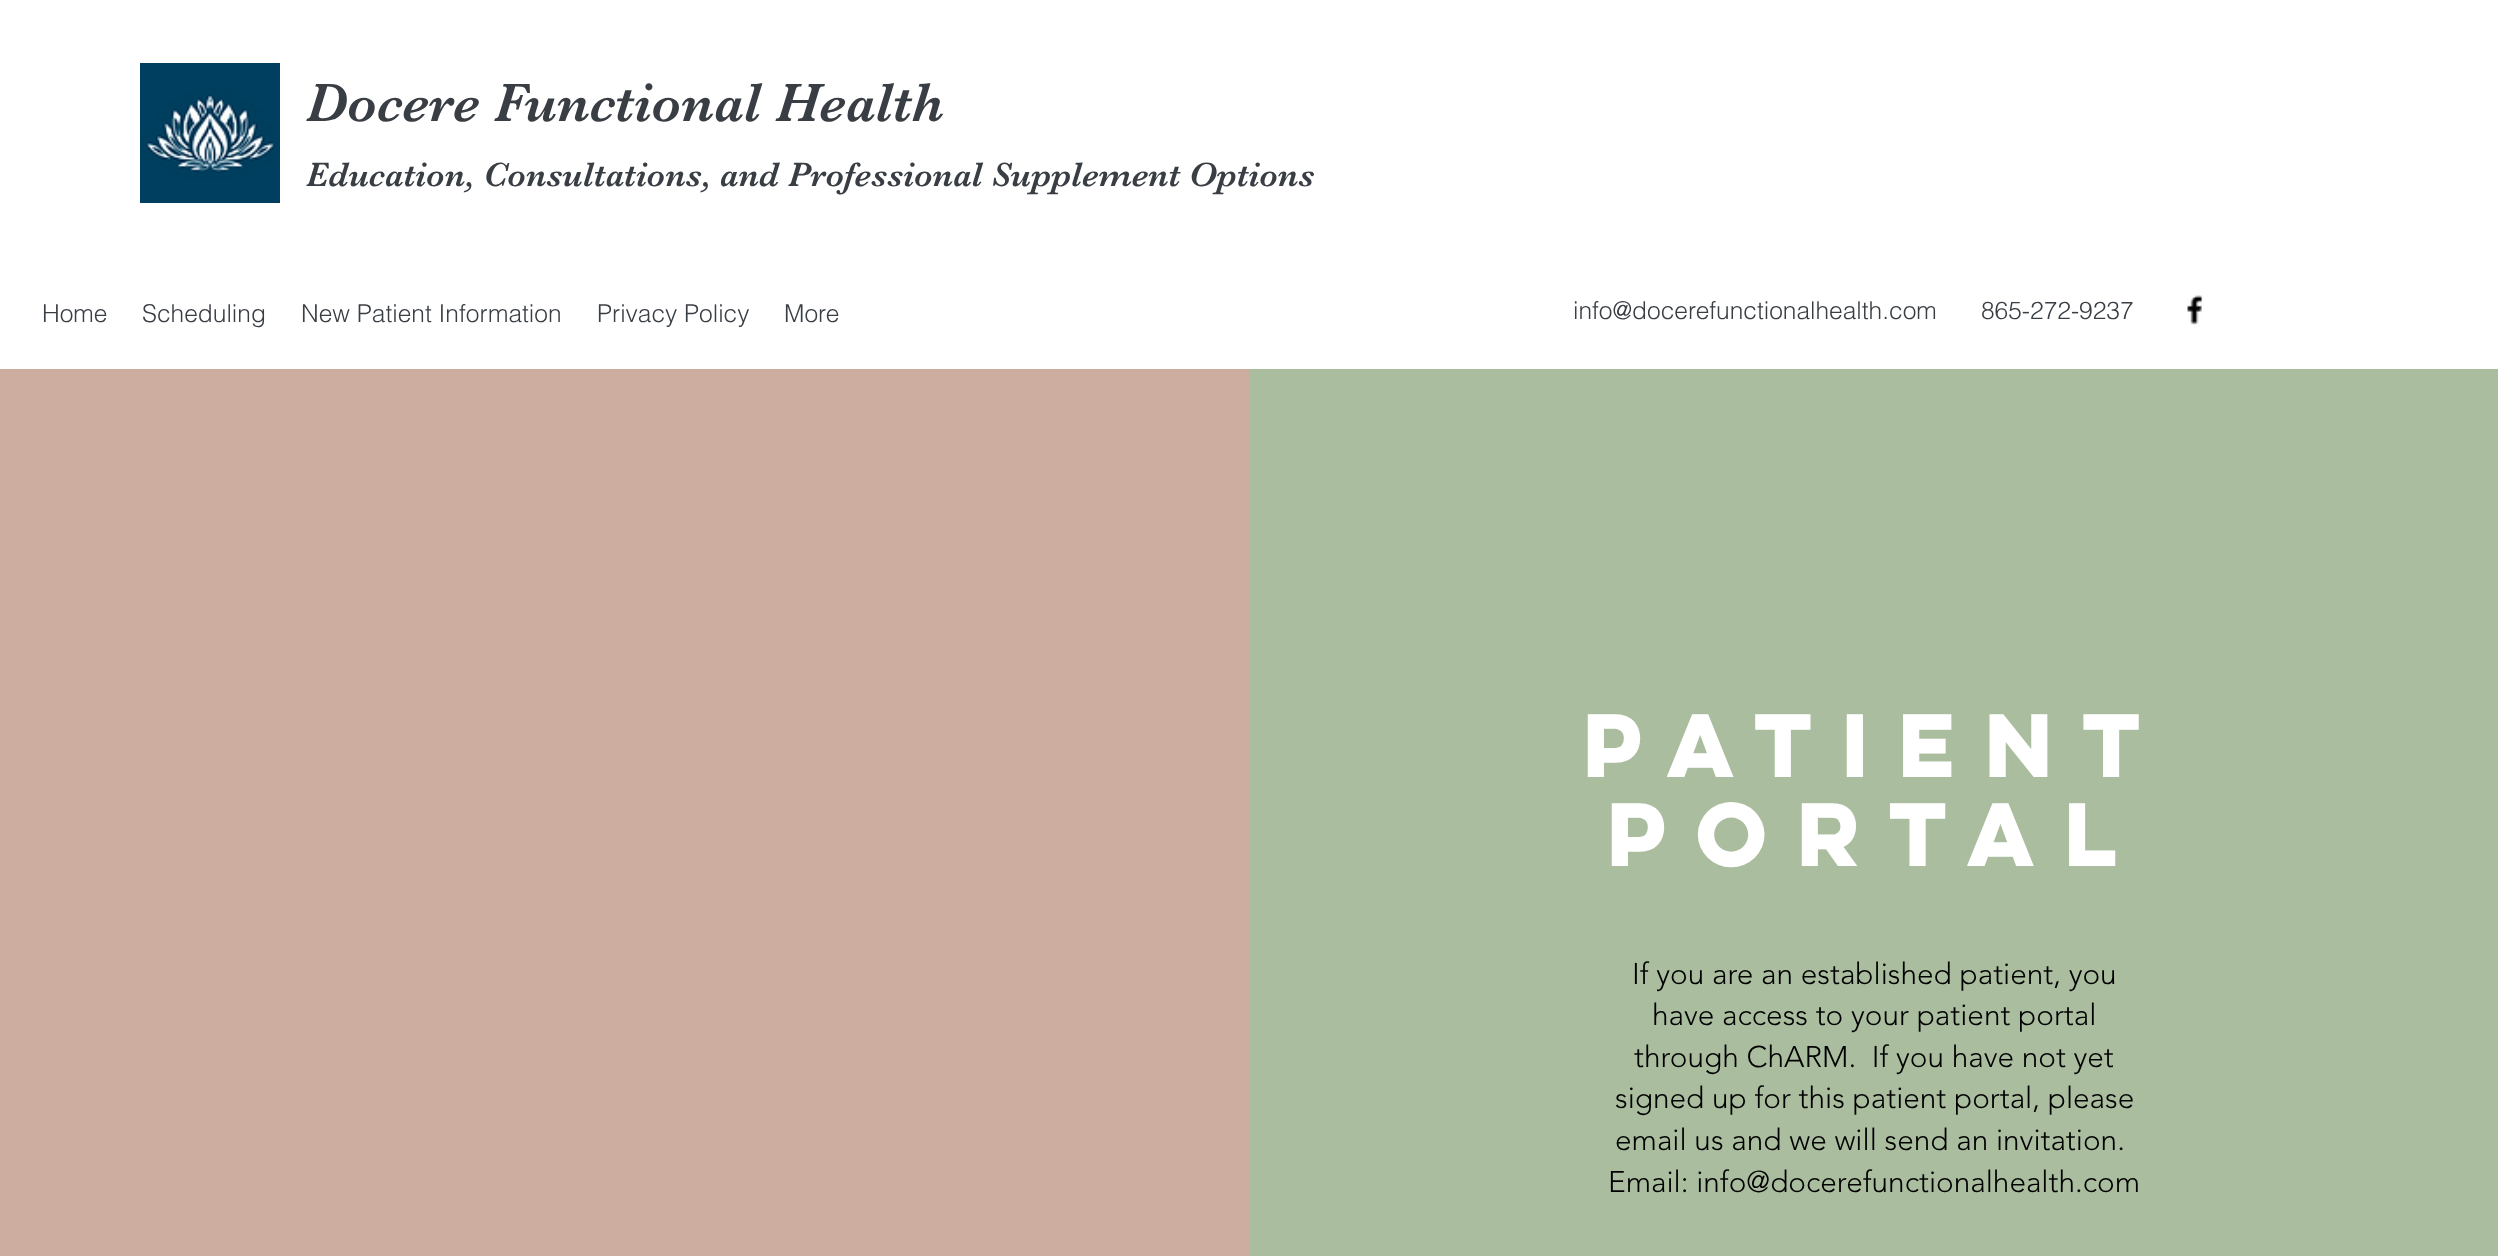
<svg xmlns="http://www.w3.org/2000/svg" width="2498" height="1256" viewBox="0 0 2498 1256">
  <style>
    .t1 { font: 56px 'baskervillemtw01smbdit'; fill: #393e44; }
    .t2 { font: 35px 'baskervillemtw01smbdit'; fill: #393e44; }
    .t3 { font: 300 24.5px helvetica; fill: #393e44; }
    .t4 { font: bold 80.5px 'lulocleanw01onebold'; letter-spacing: 12px; fill: #fff; }
    .t5 { font: 300 29.75px 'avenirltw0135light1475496'; fill: #000; }
  </style>
  <rect width="100%" height="100%" fill="#ccad9f"/>
  <rect x="0" y="0" width="2498" height="369" fill="#fff"/>
  <image x="140" y="63" width="140" height="140" href="images/1.png"/>
  <text x="306" y="121" class="t1">Docere Functional Health</text>
  <text x="306" y="186" class="t2">Education, Consultations, and Professional Supplement Options</text>
  <text x="42" y="322" class="t3">Home</text>
  <text x="142" y="322" class="t3">Scheduling</text>
  <text x="301" y="322" class="t3">New Patient Information</text>
  <text x="597" y="322" class="t3">Privacy Policy</text>
  <text x="784" y="322" class="t3">More</text>
  <text x="1573" y="319" class="t3">info@docerefunctionalhealth.com</text>
  <text x="1981" y="319" class="t3">865-272-9237</text>
  <image x="2187" y="295" width="16" height="30" href="images/2.png"/>
  <rect x="1250" y="369" width="1248" height="887" fill="#aabd9f"/>
  <text x="1583" y="777" class="t4">Patient</text>
  <text x="1607" y="866" class="t4">Portal</text>
  <text x="1632" y="984" class="t5">If you are an established patient, you</text>
  <text x="1652" y="1025" class="t5">have access to your patient portal</text>
  <text x="1634" y="1067" class="t5" xml:space="preserve">through ChARM.  If you have not yet</text>
  <text x="1615" y="1108" class="t5">signed up for this patient portal, please</text>
  <text x="1615" y="1150" class="t5">email us and we will send an invitation.</text>
  <text x="1608" y="1192" class="t5">Email: info@docerefunctionalhealth.com</text>
</svg>
